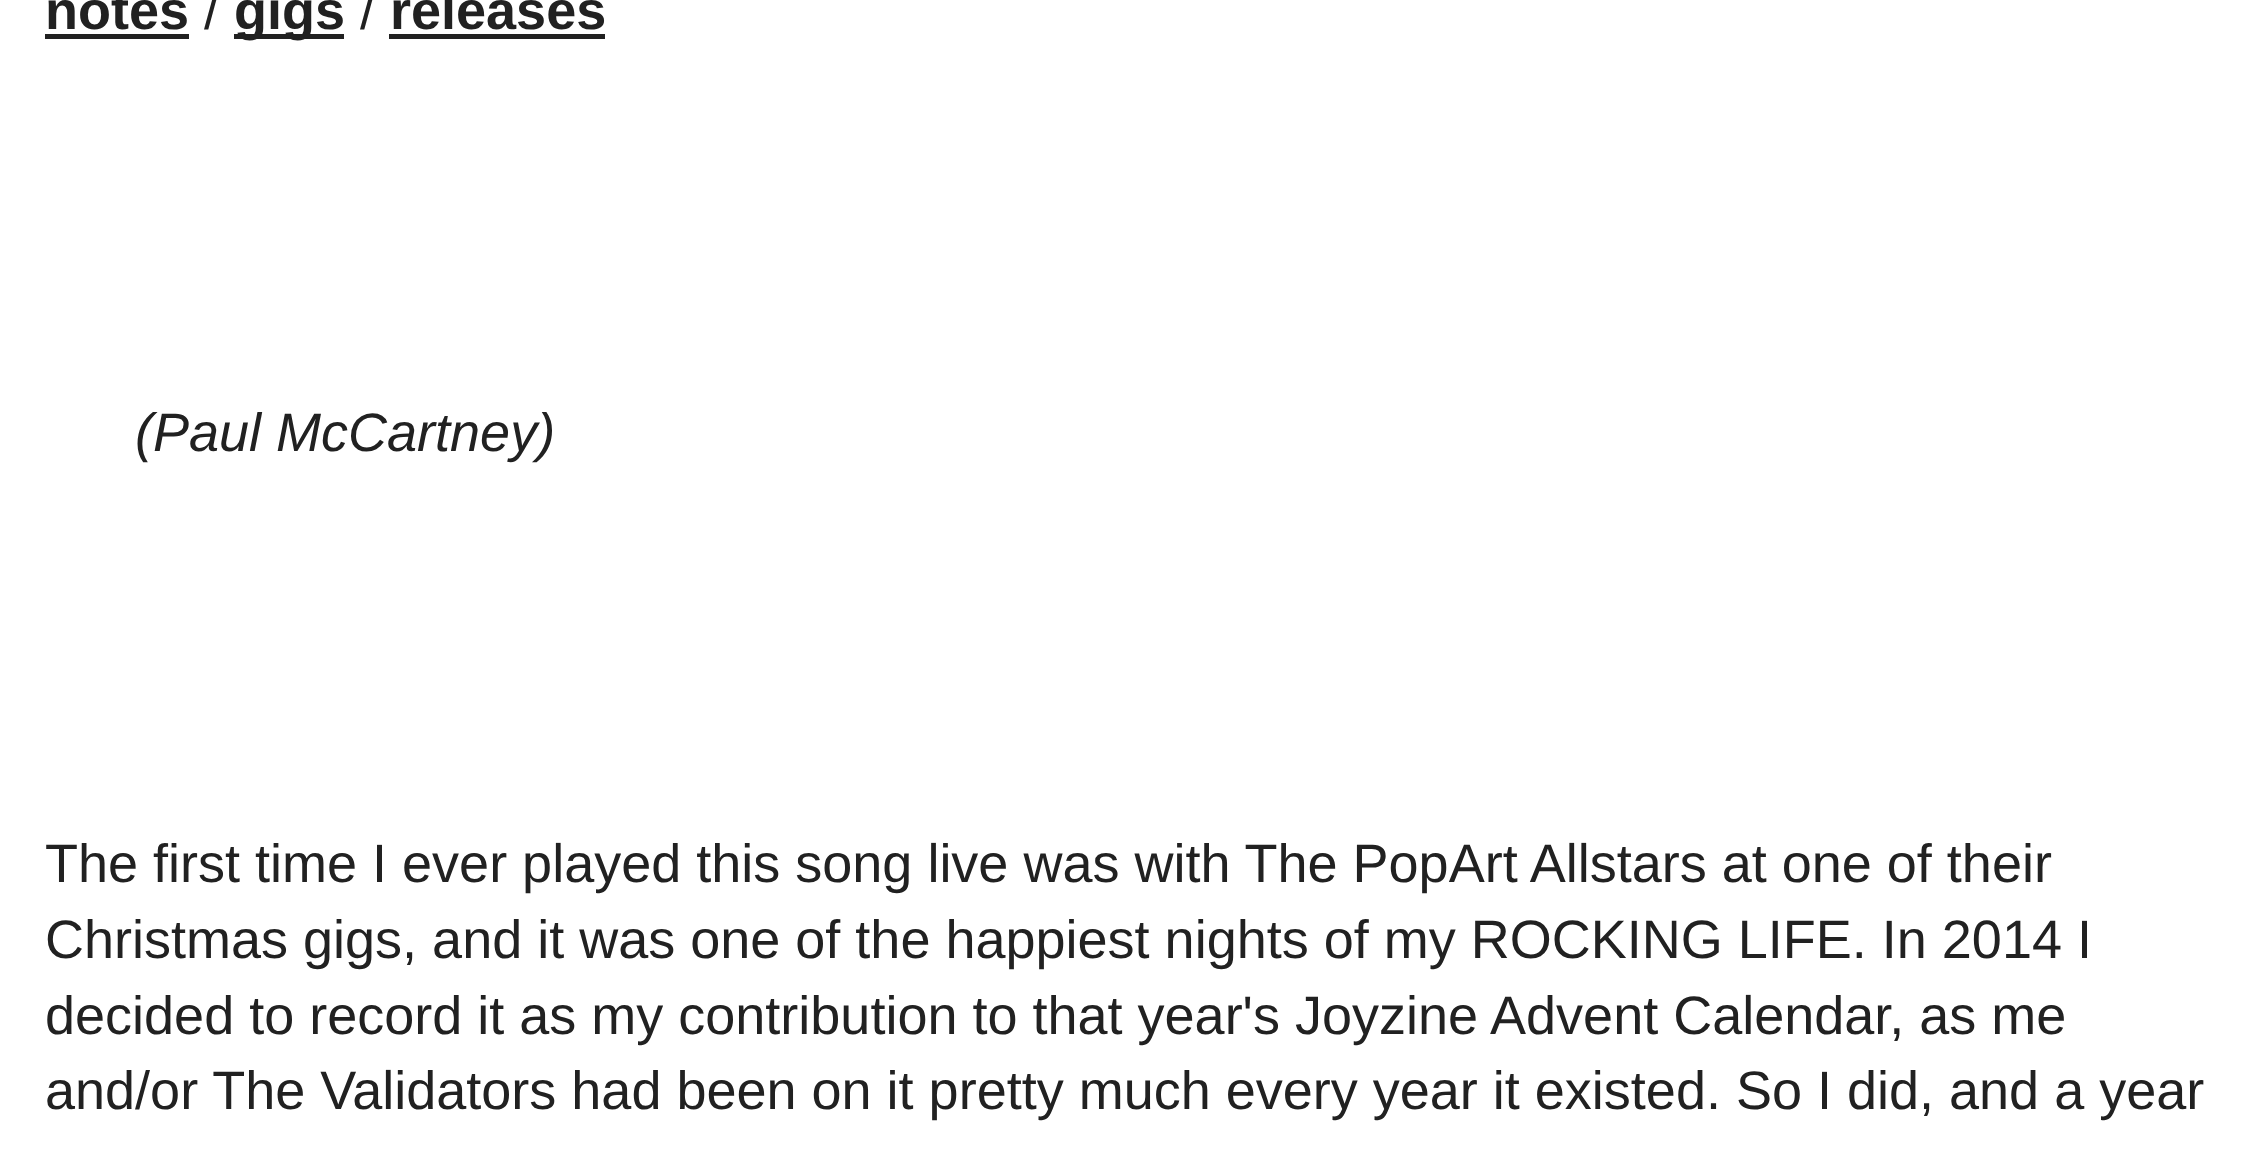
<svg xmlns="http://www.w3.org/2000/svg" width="2256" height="1170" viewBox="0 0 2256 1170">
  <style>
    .t1 { font: bold 54px Liberation Sans; fill: #212121; }
    .t2 { font: 54px Liberation Sans; fill: #212121; }
    .t3 { font: italic 54px Liberation Sans; fill: #212121; }
  </style>
  <rect width="100%" height="100%" fill="#fff"/>
  <text x="45" y="29" class="t1">notes</text>
  <rect x="45" y="34" width="144" height="5" fill="#212121"/>
  <text x="204" y="29" class="t2">/</text>
  <rect x="234" y="34" width="110" height="5" fill="#212121"/>
  <text x="234" y="29" class="t1">gigs</text>
  <text x="360" y="29" class="t2">/</text>
  <text x="390" y="29" class="t1">releases</text>
  <rect x="389" y="34" width="216" height="5" fill="#212121"/>
  <text x="135" y="451" class="t3">(Paul McCartney)</text>
  <text x="45" y="882" class="t2">The first time I ever played this song live was with The PopArt Allstars at one of their</text>
  <text x="45" y="958" class="t2">Christmas gigs, and it was one of the happiest nights of my ROCKING LIFE. In 2014 I</text>
  <text x="45" y="1034" class="t2">decided to record it as my contribution to that year's Joyzine Advent Calendar, as me</text>
  <text x="45" y="1109" class="t2">and/or The Validators had been on it pretty much every year it existed. So I did, and a year</text>
</svg>
